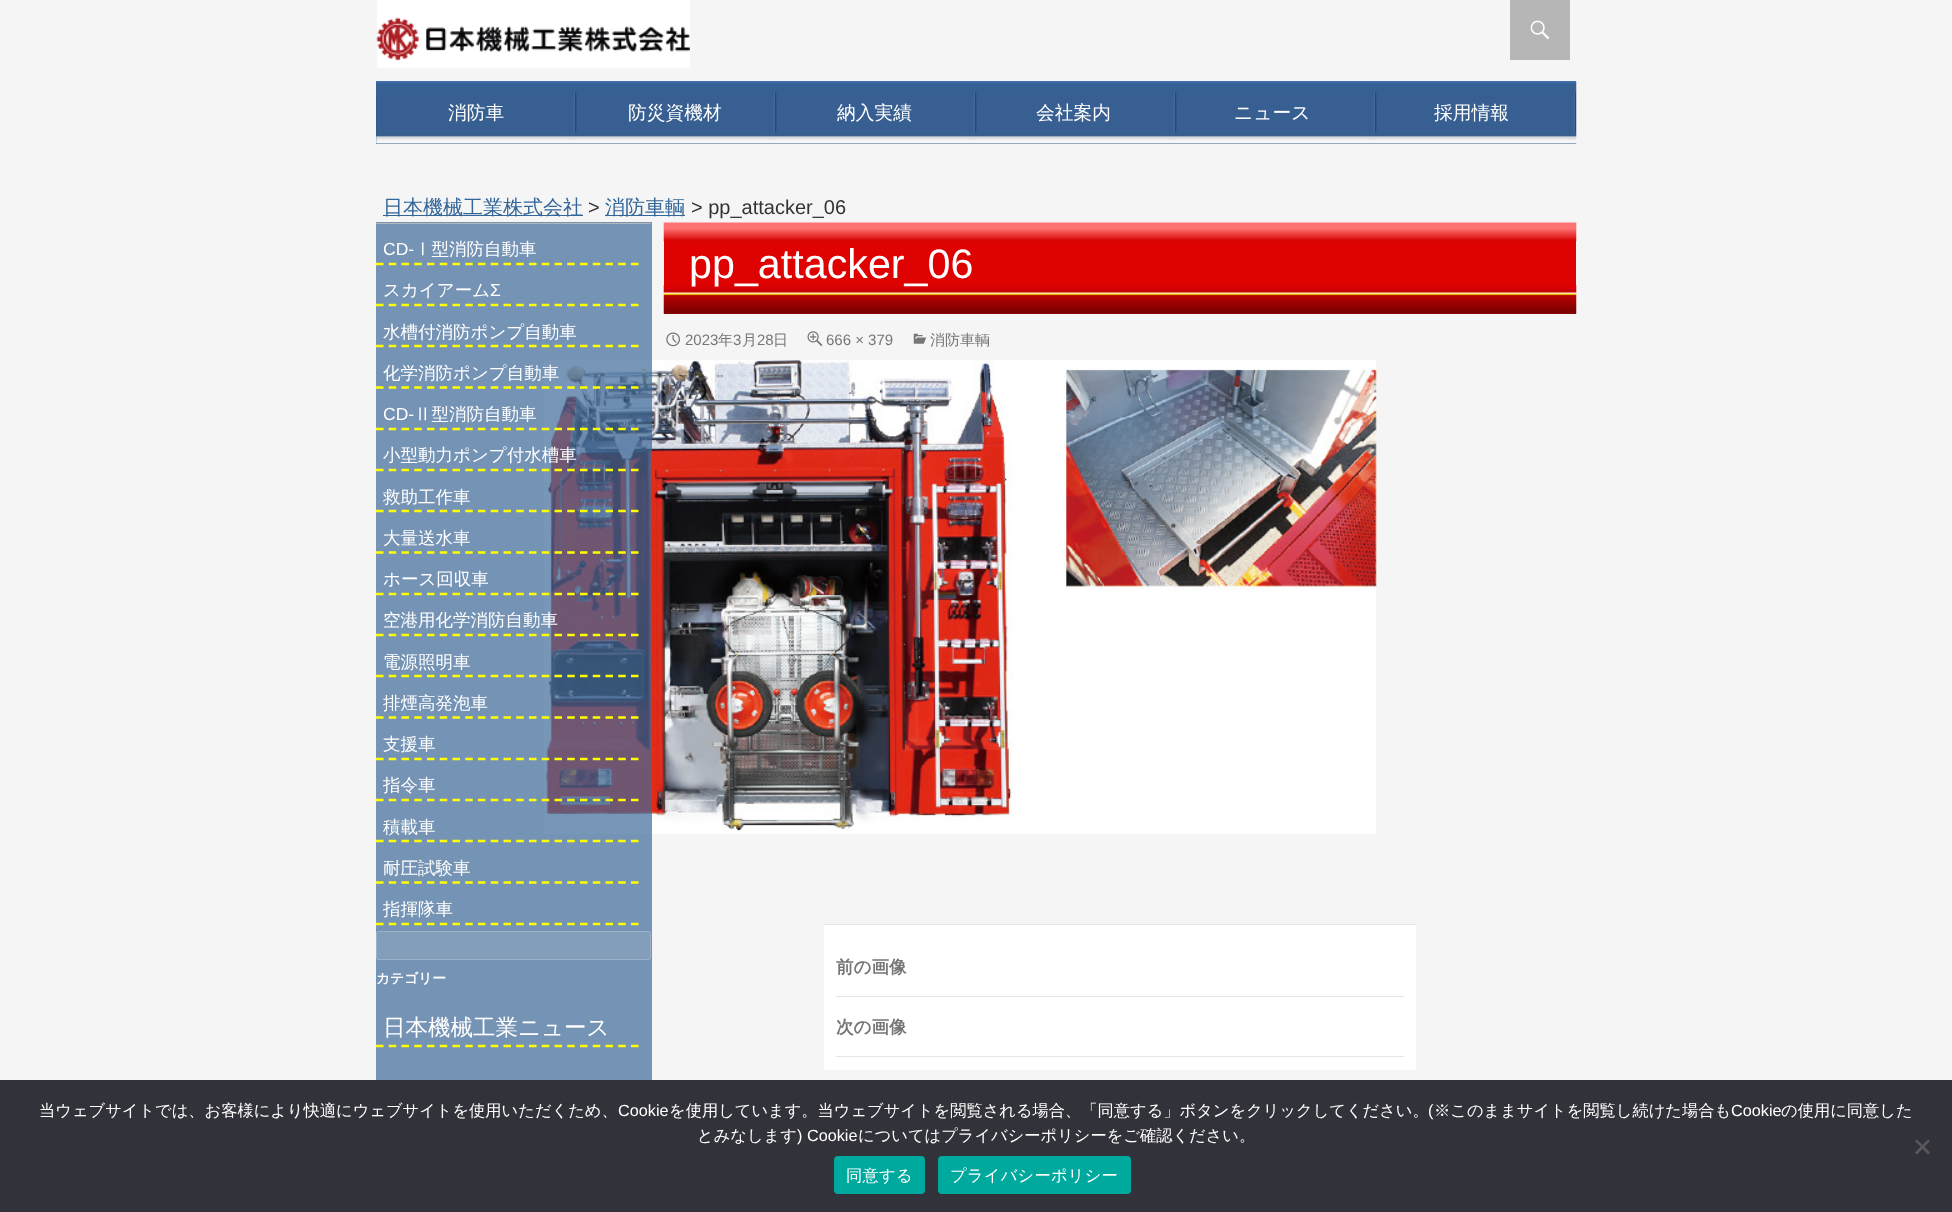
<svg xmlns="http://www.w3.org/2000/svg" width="1952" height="1212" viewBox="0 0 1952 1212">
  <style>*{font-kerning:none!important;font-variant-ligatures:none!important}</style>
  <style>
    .t1 { font: 500 18.75px WenQuanYi Zen Hei; fill: #fff; }
    .t2 { font: 500 20px WenQuanYi Zen Hei; fill: #369; }
    .t3 { font: 20px Liberation Sans; fill: #333; }
    .t4 { font: 17.5px Liberation Sans; fill: #fff; }
    .t5 { font: 500 17.5px WenQuanYi Zen Hei; fill: #fff; }
    .t6 { font: bold 13.75px WenQuanYi Zen Hei; fill: #fff; }
    .t7 { font: 500 22.5px WenQuanYi Zen Hei; fill: #fff; }
    .t8 { font: 41.25px Liberation Sans; fill: #fff; }
    .t9 { font: 15px Liberation Sans; fill: #767676; }
    .t10 { font: 500 15px WenQuanYi Zen Hei; fill: #767676; }
    .t11 { font: bold 17.5px WenQuanYi Zen Hei; fill: #767676; }
    .t12 { font: 500 16.25px WenQuanYi Zen Hei; fill: #fff; }
    .t13 { font: 16.25px Liberation Sans; fill: #fff; }
    .t14 { font: 500 16.25px WenQuanYi Zen Hei; letter-spacing: 0.25px; fill: #fff; }
  </style>
  <rect width="100%" height="100%" fill="#f5f5f5"/>
  <image x="376" y="0" width="314" height="69" href="images/1.png"/>
  <rect x="1510" y="0" width="60" height="60" fill="#b6b6b6"/>
  <image x="1530" y="20" width="20" height="20" href="images/2.png"/>
  <rect x="376" y="81" width="1200" height="63" fill="#369"/>
  <image x="376" y="81" width="1201" height="63" href="images/3.png"/>
  <text x="448" y="119" class="t1">消防車</text>
  <text x="628" y="119" class="t1">防災資機材</text>
  <text x="837" y="119" class="t1">納入実績</text>
  <text x="1036" y="119" class="t1">会社案内</text>
  <text x="1234" y="119" class="t1">ニュース</text>
  <text x="1434" y="119" class="t1">採用情報</text>
  <rect x="383" y="215" width="200" height="1" fill="#369"/>
  <text x="383" y="214" class="t2">日本機械工業株式会社</text>
  <text x="588" y="214" class="t3">&gt;</text>
  <rect x="605" y="215" width="80" height="1" fill="#369"/>
  <text x="605" y="214" class="t2">消防車輌</text>
  <text x="691" y="214" class="t3">&gt; pp_attacker_06</text>
  <image x="544" y="360" width="833" height="474" href="images/9.png"/>
  <rect x="376" y="222" width="276" height="858" fill="#3f6998b3"/>
  <rect x="376" y="223" width="275" height="1" fill="#b6b6b6"/>
  <path d="M376 264H639" fill="none" stroke="#ff0" stroke-width="2.5" stroke-dasharray="7.5 5.25"/>
  <text x="383" y="255" class="t4">CD-</text>
  <text x="414" y="255" class="t5">Ⅰ型消防自動車</text>
  <path d="M376 305H639" fill="none" stroke="#ff0" stroke-width="2.5" stroke-dasharray="7.5 5.25"/>
  <text x="383" y="296" class="t5">スカイアーム</text>
  <text x="490" y="296" class="t4">Σ</text>
  <path d="M376 346H639" fill="none" stroke="#ff0" stroke-width="2.5" stroke-dasharray="7.5 5.25"/>
  <text x="383" y="338" class="t5">水槽付消防ポンプ自動車</text>
  <path d="M376 387.5H639" fill="none" stroke="#ff0" stroke-width="2.5" stroke-dasharray="7.5 5.25"/>
  <text x="383" y="379" class="t5">化学消防ポンプ自動車</text>
  <path d="M376 429H639" fill="none" stroke="#ff0" stroke-width="2.5" stroke-dasharray="7.5 5.25"/>
  <text x="383" y="420" class="t4">CD-</text>
  <text x="414" y="420" class="t5">Ⅱ型消防自動車</text>
  <path d="M376 470H639" fill="none" stroke="#ff0" stroke-width="2.5" stroke-dasharray="7.5 5.25"/>
  <text x="383" y="461" class="t5">小型動力ポンプ付水槽車</text>
  <path d="M376 511H639" fill="none" stroke="#ff0" stroke-width="2.5" stroke-dasharray="7.5 5.25"/>
  <text x="383" y="503" class="t5">救助工作車</text>
  <path d="M376 552.5H639" fill="none" stroke="#ff0" stroke-width="2.5" stroke-dasharray="7.5 5.25"/>
  <text x="383" y="544" class="t5">大量送水車</text>
  <path d="M376 594H639" fill="none" stroke="#ff0" stroke-width="2.5" stroke-dasharray="7.5 5.25"/>
  <text x="383" y="585" class="t5">ホース回収車</text>
  <path d="M376 635H639" fill="none" stroke="#ff0" stroke-width="2.5" stroke-dasharray="7.5 5.25"/>
  <text x="383" y="626" class="t5">空港用化学消防自動車</text>
  <path d="M376 676H639" fill="none" stroke="#ff0" stroke-width="2.5" stroke-dasharray="7.5 5.25"/>
  <text x="383" y="668" class="t5">電源照明車</text>
  <path d="M376 717.5H639" fill="none" stroke="#ff0" stroke-width="2.5" stroke-dasharray="7.5 5.25"/>
  <text x="383" y="709" class="t5">排煙高発泡車</text>
  <path d="M376 759H639" fill="none" stroke="#ff0" stroke-width="2.5" stroke-dasharray="7.5 5.25"/>
  <text x="383" y="750" class="t5">支援車</text>
  <path d="M376 800H639" fill="none" stroke="#ff0" stroke-width="2.5" stroke-dasharray="7.5 5.25"/>
  <text x="383" y="791" class="t5">指令車</text>
  <path d="M376 841H639" fill="none" stroke="#ff0" stroke-width="2.5" stroke-dasharray="7.5 5.25"/>
  <text x="383" y="833" class="t5">積載車</text>
  <path d="M376 882.5H639" fill="none" stroke="#ff0" stroke-width="2.5" stroke-dasharray="7.5 5.25"/>
  <text x="383" y="874" class="t5">耐圧試験車</text>
  <path d="M376 924H639" fill="none" stroke="#ff0" stroke-width="2.5" stroke-dasharray="7.5 5.25"/>
  <text x="383" y="915" class="t5">指揮隊車</text>
  <rect x="376" y="931" width="275" height="29" rx="2.5" fill="#839ebb"/>
  <rect x="376.5" y="931.5" width="274" height="28" rx="2" fill="none" stroke="#ffffff33"/>
  <text x="376" y="983" class="t6">カテゴリー</text>
  <path d="M376 1046H639" fill="none" stroke="#ff0" stroke-width="2.5" stroke-dasharray="7.5 5.25"/>
  <text x="383" y="1035" class="t7">日本機械工業ニュース</text>
  <rect x="664" y="241" width="912" height="73" fill="#de0200"/>
  <image x="663" y="222" width="914" height="20" href="images/4.png"/>
  <image x="663" y="285" width="914" height="29" href="images/5.png"/>
  <text x="689" y="278" class="t8">pp_attacker_06</text>
  <image x="666" y="332" width="14" height="15" href="images/6.png"/>
  <text x="685" y="345" class="t9">2023</text>
  <text x="718" y="345" class="t10">年</text>
  <text x="733" y="345" class="t9">3</text>
  <text x="742" y="345" class="t10">月</text>
  <text x="757" y="345" class="t9">28</text>
  <text x="773" y="345" class="t10">日</text>
  <image x="807" y="331" width="16" height="16" href="images/7.png"/>
  <text x="826" y="345" class="t9">666 × 379</text>
  <image x="913" y="333" width="14" height="11" href="images/8.png"/>
  <text x="930" y="345" class="t10">消防車輌</text>
  <rect x="824" y="925" width="592" height="145" fill="#fff"/>
  <rect x="824" y="924" width="592" height="1" fill="#e6e6e6"/>
  <rect x="836" y="996" width="568" height="1" fill="#e6e6e6"/>
  <text x="836" y="973" class="t11">前の画像</text>
  <rect x="836" y="1056" width="568" height="1" fill="#e6e6e6"/>
  <text x="836" y="1033" class="t11">次の画像</text>
  <rect x="0" y="1080" width="1952" height="132" fill="#32323a"/>
  <text x="39" y="1116" class="t12">当ウェブサイトでは、お客様により快適にウェブサイトを使用いただくため、</text>
  <text x="618" y="1116" class="t13">Cookie</text>
  <text x="669" y="1116" class="t12">を使用しています。当ウェブサイトを閲覧される場合、「同意する」ボタンをクリックしてください。</text>
  <text x="1428" y="1116" class="t13">(</text>
  <text x="1434" y="1116" class="t12">※このままサイトを閲覧し続けた場合も</text>
  <text x="1731" y="1116" class="t13">Cookie</text>
  <text x="1781" y="1116" class="t12">の使用に同意した</text>
  <text x="697" y="1141" class="t12">とみなします</text>
  <text x="797" y="1141" class="t13">) Cookie</text>
  <text x="858" y="1141" class="t12">についてはプライバシーポリシーをご確認ください。</text>
  <path d="M1928 1139.5L1930 1141L1917 1154.5L1915 1152.5Z" fill="#59595d"/>
  <path d="M1915 1141L1917 1139.5L1930 1152.5L1928 1154.5Z" fill="#59595d"/>
  <rect x="834" y="1156" width="91" height="38" rx="4" fill="#00a99d"/>
  <text x="846" y="1181" class="t14">同意する</text>
  <rect x="938" y="1156" width="193" height="38" rx="4" fill="#00a99d"/>
  <text x="950" y="1181" class="t14">プライバシーポリシー</text>
</svg>
